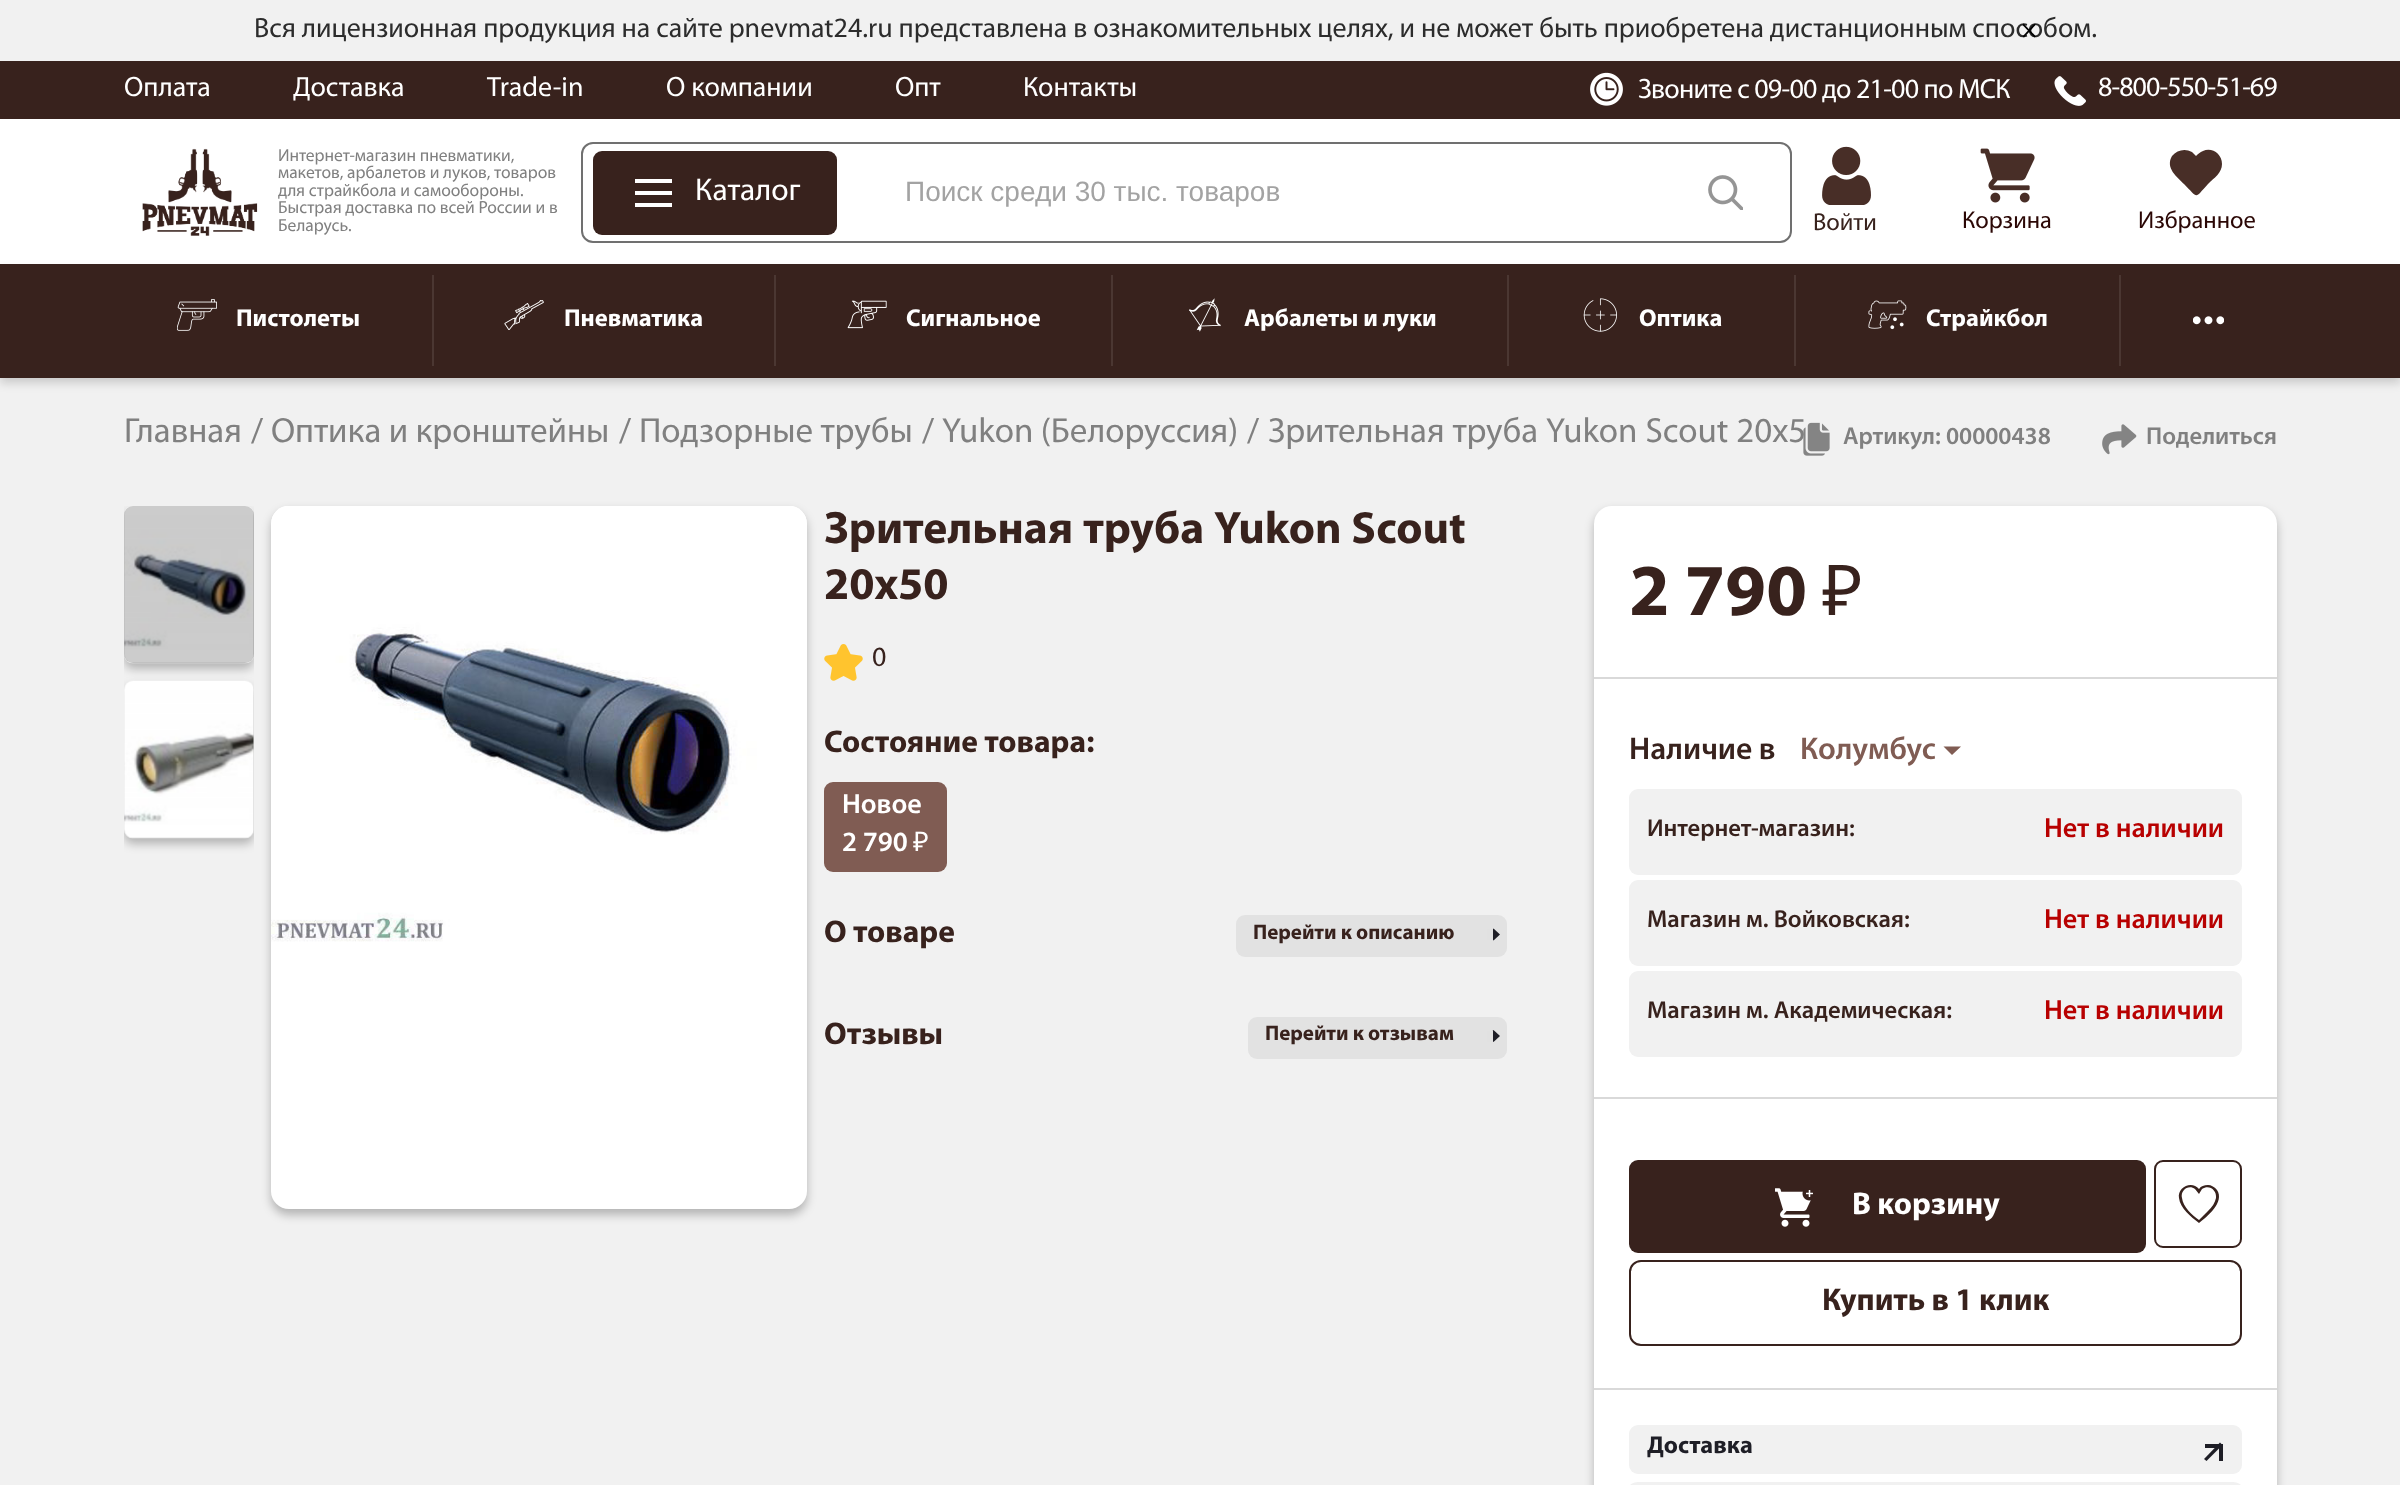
<svg xmlns="http://www.w3.org/2000/svg" width="2400" height="1485" viewBox="0 0 2400 1485">
  <style>
    .t1 { font: 28px Myriad; fill: #2c2c2c; }
    .t2 { font: 28px Myriad; fill: #fff; }
    .t3 { font: 28px Myriad; letter-spacing: -0.7px; fill: #fff; }
    .t4 { font: 28px Myriad; letter-spacing: -0.9px; fill: #fff; }
    .t5 { font: 17.5px Myriad; fill: #808080; }
    .t6 { font: 31.5px Myriad; fill: #fff; }
    .t7 { font: 28px Liberation Sans; fill: #a3a3a3; }
    .t8 { font: 24.5px Myriad; fill: #38221d; }
    .t9 { font: 24.5px Myriad; fill: #2b0705; }
    .t10 { font: bold 24.5px Myriad; fill: #fff; }
    .t11 { font: 35px Myriad; fill: #808080; }
    .t12 { font: 600 24.5px Myriad; fill: #808080; }
    .t13 { font: bold 45.5px Myriad; fill: #38221d; }
    .t14 { font: 28px Myriad; fill: #38221d; }
    .t15 { font: bold 31.5px Myriad; fill: #38221d; }
    .t16 { font: 600 28px Myriad; fill: #fff; }
    .t17 { font: 27px Noto Sans; fill: #fff; }
    .t18 { font: bold 21px Myriad; fill: #38221d; }
    .t19 { font: bold 73.5px Myriad; fill: #38221d; }
    .t20 { font: 70px Noto Sans; fill: #38221d; }
    .t21 { font: 600 31.5px Myriad; fill: #38221d; }
    .t22 { font: 600 31.5px Myriad; fill: #805c53; }
    .t23 { font: 600 24.5px Myriad; fill: #38221d; }
    .t24 { font: 600 28px Myriad; fill: #b80101; }
    .t25 { font: bold 31.5px Myriad; fill: #fff; }
    .t26 { font: bold 24.5px Myriad; fill: #1e1e26; }
  </style>
  <defs>
    <clipPath id="clip1"><rect x="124" y="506" width="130" height="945"/></clipPath>
  </defs>
  <rect width="100%" height="100%" fill="#f1f1f1"/>
  <text x="254" y="37" class="t1">Вся лицензионная продукция на сайте pnevmat24.ru представлена в ознакомительных целях, и не может быть приобретена дистанционным способом.</text>
  <path d="M2034.5 37.5L2022.5 25L2023.5 23.5L2036 36.5Z" fill="#000"/>
  <path d="M2035.5 25L2024 37.5L2022.5 36.5L2034.5 23.5Z" fill="#000"/>
  <rect x="0" y="61" width="2400" height="58" fill="#38221d"/>
  <text x="124" y="96" class="t2">Оплата</text>
  <text x="293" y="96" class="t2">Доставка</text>
  <text x="487" y="96" class="t2">Trade-in</text>
  <text x="666" y="96" class="t2">О компании</text>
  <text x="895" y="96" class="t2">Опт</text>
  <text x="1023" y="96" class="t2">Контакты</text>
  <image x="1590" y="72" width="33" height="34" href="images/1.png"/>
  <text x="1638" y="98" class="t3">Звоните с 09-00 до 21-00 по МСК</text>
  <image x="2054" y="76" width="32" height="30" href="images/2.png"/>
  <text x="2098" y="96" class="t4">8-800-550-51-69</text>
  <rect x="0" y="119" width="2400" height="145" fill="#fff"/>
  <image x="142" y="148" width="116" height="88" href="images/3.png"/>
  <text x="278" y="161" class="t5">Интернет-магазин пневматики,</text>
  <text x="278" y="178" class="t5">макетов, арбалетов и луков, товаров</text>
  <text x="278" y="196" class="t5">для страйкбола и самообороны.</text>
  <text x="278" y="213" class="t5">Быстрая доставка по всей России и в</text>
  <text x="278" y="231" class="t5">Беларусь.</text>
  <rect x="582" y="143" width="1209" height="99" rx="11" fill="none" stroke="#707070" stroke-width="2"/>
  <rect x="593" y="151" width="244" height="84" rx="9" fill="#38221d"/>
  <rect x="635" y="179" width="37" height="4" fill="#fff"/>
  <rect x="635" y="191" width="37" height="4" fill="#fff"/>
  <rect x="635" y="203" width="37" height="4" fill="#fff"/>
  <text x="695" y="200" class="t6">Каталог</text>
  <text x="905" y="201" class="t7">Поиск среди 30 тыс. товаров</text>
  <image x="1708" y="175" width="35" height="35" href="images/4.png"/>
  <image x="1822" y="146" width="49" height="59" href="images/5.png"/>
  <text x="1813" y="230" class="t8">Войти</text>
  <image x="1980" y="148" width="55" height="55" href="images/6.png"/>
  <text x="1962" y="228" class="t9">Корзина</text>
  <path d="M2222 164C2222 173 2214 178 2208 184C2194 199 2199 199 2184 184C2177 177 2165 168 2172 156C2177 150 2185 148 2192 152L2196 156C2198 154 2200 152 2203 151C2212 147 2222 154 2222 164Z" fill="#482e27"/>
  <text x="2138" y="228" class="t9">Избранное</text>
  <rect x="0" y="270" width="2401" height="113" fill="#00000029" filter="blur(5px)"/>
  <rect x="0" y="264" width="2400" height="114" fill="#38221d"/>
  <image x="177" y="299" width="40" height="32" href="images/7.png"/>
  <text x="236" y="326" class="t10">Пистолеты</text>
  <rect x="432" y="275" width="2" height="91" fill="#4b3732"/>
  <image x="504" y="300" width="40" height="30" href="images/8.png"/>
  <text x="564" y="326" class="t10">Пневматика</text>
  <rect x="774" y="275" width="2" height="91" fill="#4b3732"/>
  <image x="847" y="300" width="40" height="29" href="images/9.png"/>
  <text x="906" y="326" class="t10">Сигнальное</text>
  <rect x="1111" y="275" width="2" height="91" fill="#4b3732"/>
  <image x="1189" y="298" width="32" height="34" href="images/10.png"/>
  <text x="1244" y="326" class="t10">Арбалеты и луки</text>
  <rect x="1507" y="275" width="2" height="91" fill="#4b3732"/>
  <image x="1583" y="298" width="34" height="34" href="images/11.png"/>
  <text x="1639" y="326" class="t10">Оптика</text>
  <rect x="1794" y="275" width="2" height="91" fill="#4b3732"/>
  <image x="1868" y="300" width="39" height="30" href="images/12.png"/>
  <text x="1926" y="326" class="t10">Страйкбол</text>
  <rect x="2119" y="275" width="2" height="91" fill="#4b3732"/>
  <image x="2193" y="316" width="31" height="9" href="images/13.png"/>
  <text x="124" y="442" class="t11">Главная</text>
  <text x="251" y="442" class="t11">/</text>
  <text x="271" y="442" class="t11">Оптика и кронштейны</text>
  <text x="619" y="442" class="t11">/</text>
  <text x="639" y="442" class="t11">Подзорные трубы</text>
  <text x="922" y="442" class="t11">/</text>
  <text x="942" y="442" class="t11">Yukon (Белоруссия)</text>
  <text x="1247" y="442" class="t11">/</text>
  <text x="1268" y="442" word-spacing="0.5" class="t11">Зрительная труба Yukon Scout 20x5</text>
  <image x="1803" y="422" width="27" height="34" href="images/14.png"/>
  <text x="1843" y="444" class="t12">Артикул: 00000438</text>
  <image x="2102" y="424" width="35" height="31" href="images/15.png"/>
  <text x="2146" y="444" class="t12">Поделиться</text>
  <g clip-path="url(#clip1)">
    <rect x="124" y="511" width="130" height="158" rx="9" fill="#00000040" filter="blur(5px)"/>
  </g>
  <image x="124" y="506" width="130" height="158" href="images/16.png"/>
  <rect x="124" y="506" width="130" height="157" rx="9" fill="#00000033"/>
  <g clip-path="url(#clip1)">
    <rect x="124" y="686" width="130" height="158" rx="9" fill="#00000040" filter="blur(5px)"/>
  </g>
  <image x="124" y="680" width="130" height="159" href="images/17.png"/>
  <rect x="271" y="511" width="536" height="704" rx="18" fill="#00000040" filter="blur(5px)"/>
  <rect x="271" y="506" width="536" height="703" rx="18" fill="#fff"/>
  <image x="271" y="506" width="536" height="436" href="images/18.png"/>
  <text x="824" y="543" word-spacing="0.5" class="t13">Зрительная труба Yukon Scout</text>
  <text x="824" y="599" class="t13">20x50</text>
  <image x="824" y="644" width="39" height="37" href="images/19.png"/>
  <text x="872" y="666" class="t14">0</text>
  <text x="824" y="752" class="t15">Состояние товара:</text>
  <rect x="824" y="782" width="123" height="90" rx="9" fill="#805c53"/>
  <text x="842" y="813" class="t16">Новое</text>
  <text x="842" y="851" class="t16">2 790</text>
  <text x="913" y="851" class="t17">₽</text>
  <text x="824" y="942" class="t15">О товаре</text>
  <rect x="1236" y="915" width="271" height="42" rx="9" fill="#e2e2e2"/>
  <text x="1253" y="939" class="t18">Перейти к описанию</text>
  <path d="M1493.5 928.5L1500 934.5L1493.5 940.5L1487.5 934.5Z" fill="#1e1e26"/>
  <rect x="1487" y="929" width="6" height="11" fill="#e1e1e1"/>
  <text x="824" y="1044" class="t15">Отзывы</text>
  <rect x="1248" y="1017" width="259" height="42" rx="9" fill="#e2e2e2"/>
  <text x="1265" y="1040" class="t18">Перейти к отзывам</text>
  <path d="M1493.5 1030L1500 1036L1493.5 1042L1487.5 1036Z" fill="#1e1e26"/>
  <rect x="1487" y="1031" width="6" height="11" fill="#e1e1e1"/>
  <rect x="1594" y="511" width="683" height="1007" rx="18" fill="#00000040" filter="blur(5px)"/>
  <rect x="1594" y="506" width="683" height="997" rx="18" fill="#fff"/>
  <rect x="1594" y="677" width="683" height="2" fill="#d9d9d9"/>
  <text x="1629" y="615" class="t19">2 790</text>
  <text x="1822" y="615" class="t20">₽</text>
  <rect x="1594" y="1097" width="683" height="2" fill="#d9d9d9"/>
  <text x="1629" y="759" class="t21">Наличие в</text>
  <text x="1800" y="759" class="t22">Колумбус</text>
  <path d="M1943.5 746.5L1952 755L1961 746.5Z" fill="#805c53"/>
  <rect x="1629" y="789" width="613" height="86" rx="9" fill="#f1f1f1"/>
  <text x="1647" y="836" class="t23">Интернет-магазин:</text>
  <text x="2044" y="837" class="t24">Нет в наличии</text>
  <rect x="1629" y="880" width="613" height="86" rx="9" fill="#f1f1f1"/>
  <text x="1647" y="927" class="t23">Магазин м. Войковская:</text>
  <text x="2044" y="928" class="t24">Нет в наличии</text>
  <rect x="1629" y="971" width="613" height="86" rx="9" fill="#f1f1f1"/>
  <text x="1647" y="1018" class="t23">Магазин м. Академическая:</text>
  <text x="2044" y="1019" class="t24">Нет в наличии</text>
  <rect x="1594" y="1388" width="683" height="2" fill="#d9d9d9"/>
  <rect x="1629" y="1160" width="517" height="93" rx="9" fill="#38221d"/>
  <image x="1775" y="1188" width="38" height="39" href="images/20.png"/>
  <text x="1852" y="1214" class="t25">В корзину</text>
  <rect x="2155" y="1161" width="86" height="86" rx="8" fill="none" stroke="#38221d" stroke-width="2"/>
  <path d="M2208 1185C2204 1185 2201 1186 2199 1189C2192 1180 2177 1187 2179 1198C2180 1208 2191 1217 2199 1223C2207 1217 2225 1202 2217 1190C2215 1187 2211 1185 2208 1185ZM2208 1211L2199 1220C2192 1215 2183 1207 2182 1198C2180 1190 2189 1184 2195 1189L2199 1194L2202 1189C2209 1184 2217 1190 2216 1198C2215 1203 2212 1207 2208 1211Z" fill="#38221d"/>
  <rect x="1630" y="1261" width="611" height="84" rx="11" fill="none" stroke="#38221d" stroke-width="2"/>
  <text x="1822" y="1310" class="t15">Купить в 1 клик</text>
  <rect x="1629" y="1425" width="613" height="49" rx="9" fill="#f1f1f1"/>
  <text x="1647" y="1453" class="t26">Доставка</text>
  <path d="M2204 1459L2220 1442.5L2222.5 1445L2206.5 1461Z" fill="#1e1e26"/>
  <rect x="2205" y="1444" width="18" height="4" fill="#1e1e26"/>
  <rect x="2219" y="1444" width="4" height="17" fill="#1e1e26"/>
  <rect x="1629" y="1482" width="613" height="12" rx="9" fill="#f1f1f1"/>
</svg>
